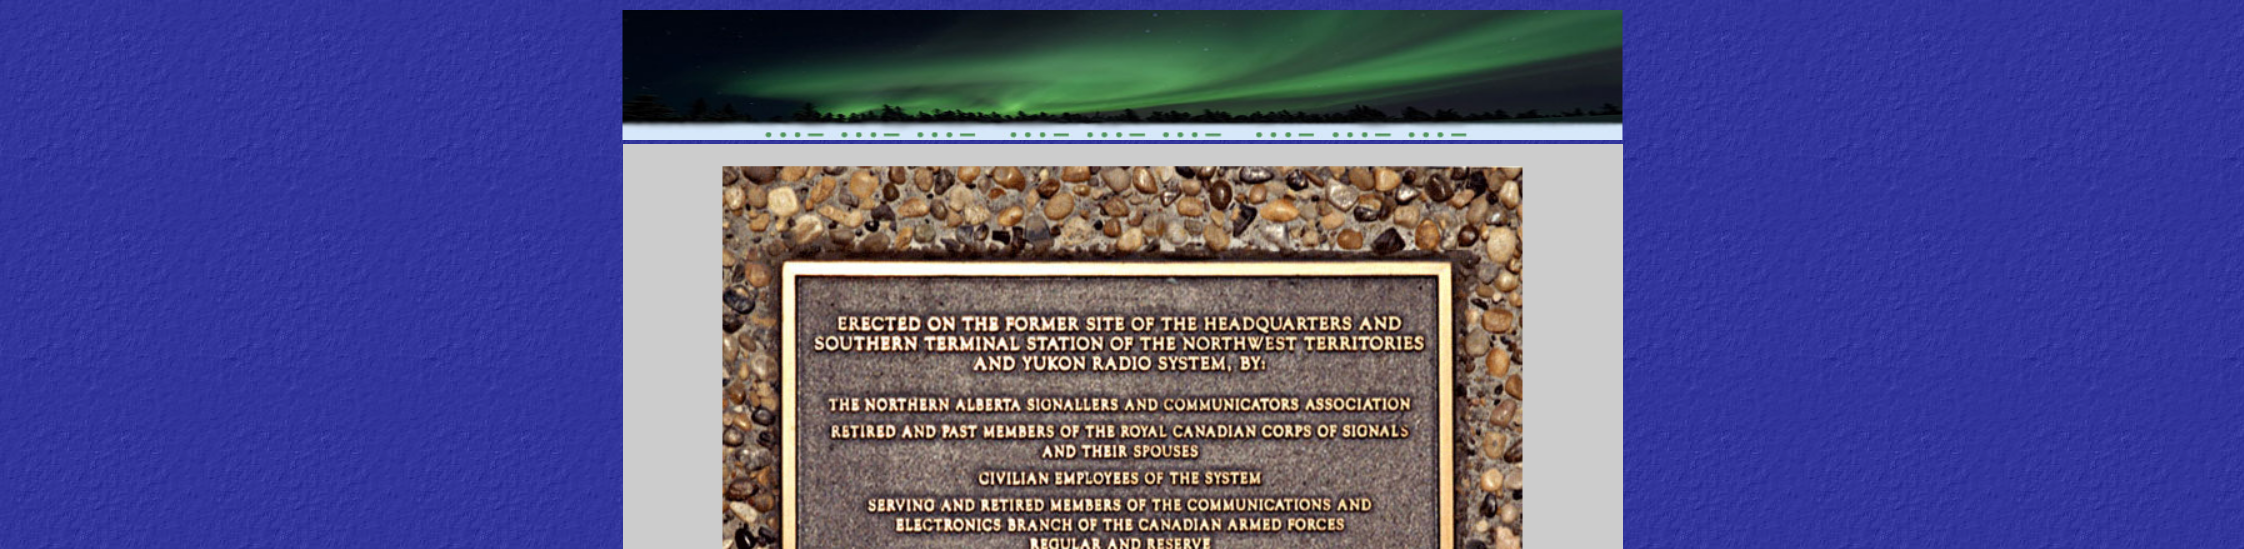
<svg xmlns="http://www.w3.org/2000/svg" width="2244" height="549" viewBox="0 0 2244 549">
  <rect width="100%" height="100%" fill="#fff"/>
  <image x="0" y="0" width="2244" height="549" href="images/1.png"/>
  <image x="622" y="10" width="1001" height="130" href="images/2.png"/>
  <rect x="623" y="144" width="1000" height="405" fill="#ccc"/>
  <image x="722" y="166" width="801" height="383" href="images/3.png"/>
</svg>
